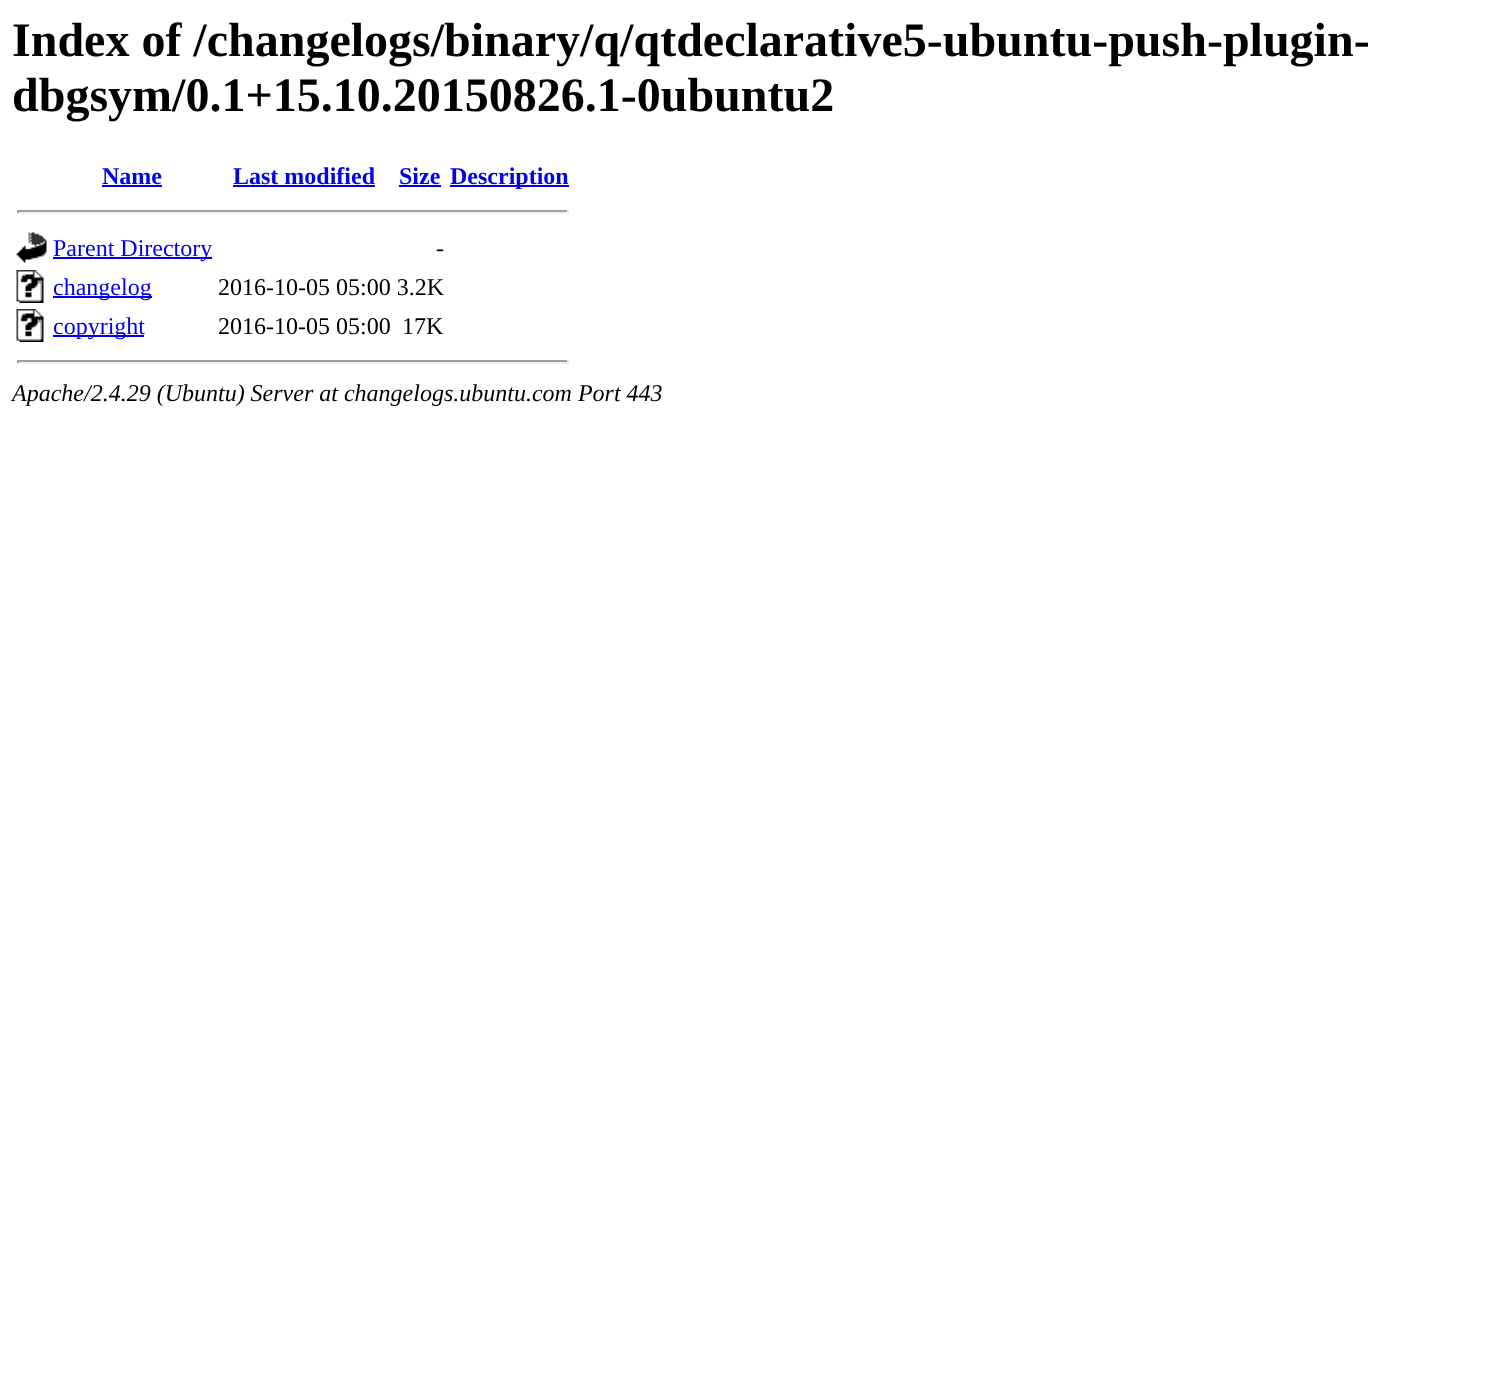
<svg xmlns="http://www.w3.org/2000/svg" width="1496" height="1394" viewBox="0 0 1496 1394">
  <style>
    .t1 { font: bold 48px Liberation Serif; fill: #000; }
    .t2 { font: bold 24px Liberation Serif; fill: #00e; }
    .t3 { font: 24px Liberation Serif; fill: #00e; }
    .t4 { font: 24px Liberation Serif; fill: #000; }
    .t5 { font: italic 24px Liberation Serif; fill: #000; }
  </style>
  <rect width="100%" height="100%" fill="#fff"/>
  <text x="12" y="56" class="t1">Index of /changelogs/binary/q/qtdeclarative5-ubuntu-push-plugin-</text>
  <text x="12" y="111" class="t1">dbgsym/0.1+15.10.20150826.1-0ubuntu2</text>
  <text x="102" y="184" class="t2">Name</text>
  <rect x="102" y="185" width="60" height="2" fill="#00e"/>
  <text x="233" y="184" class="t2">Last modified</text>
  <rect x="233" y="185" width="142" height="2" fill="#00e"/>
  <text x="399" y="184" class="t2">Size</text>
  <rect x="399" y="185" width="42" height="2" fill="#00e"/>
  <rect x="450" y="185" width="119" height="2" fill="#00e"/>
  <text x="450" y="184" class="t2">Description</text>
  <rect x="17" y="210" width="552" height="2" fill="#9f9f9f"/>
  <rect x="567" y="210" width="2" height="3" fill="#eee"/>
  <rect x="17" y="212" width="552" height="2" fill="#eee"/>
  <rect x="17" y="210" width="2" height="3" fill="#9f9f9f"/>
  <image x="16" y="232" width="31" height="31" href="images/1.png"/>
  <rect x="53" y="257" width="159" height="2" fill="#00e"/>
  <text x="53" y="256" class="t3">Parent Directory</text>
  <text x="436" y="256" class="t4">-</text>
  <image x="16" y="270" width="28" height="33" href="images/2.png"/>
  <rect x="53" y="296" width="99" height="2" fill="#00e"/>
  <text x="53" y="295" class="t3">changelog</text>
  <text x="218" y="295" class="t4">2016-10-05 05:00 3.2K</text>
  <image x="16" y="309" width="28" height="33" href="images/2.png"/>
  <rect x="53" y="335" width="91" height="2" fill="#00e"/>
  <text x="53" y="334" class="t3">copyright</text>
  <text x="218" y="334" class="t4">2016-10-05 05:00</text>
  <text x="402" y="334" class="t4">17K</text>
  <rect x="17" y="360" width="552" height="2" fill="#9f9f9f"/>
  <rect x="567" y="360" width="2" height="3" fill="#eee"/>
  <rect x="17" y="362" width="552" height="2" fill="#eee"/>
  <rect x="17" y="360" width="2" height="3" fill="#9f9f9f"/>
  <text x="12" y="401" class="t5">Apache/2.4.29 (Ubuntu) Server at changelogs.ubuntu.com Port 443</text>
</svg>
